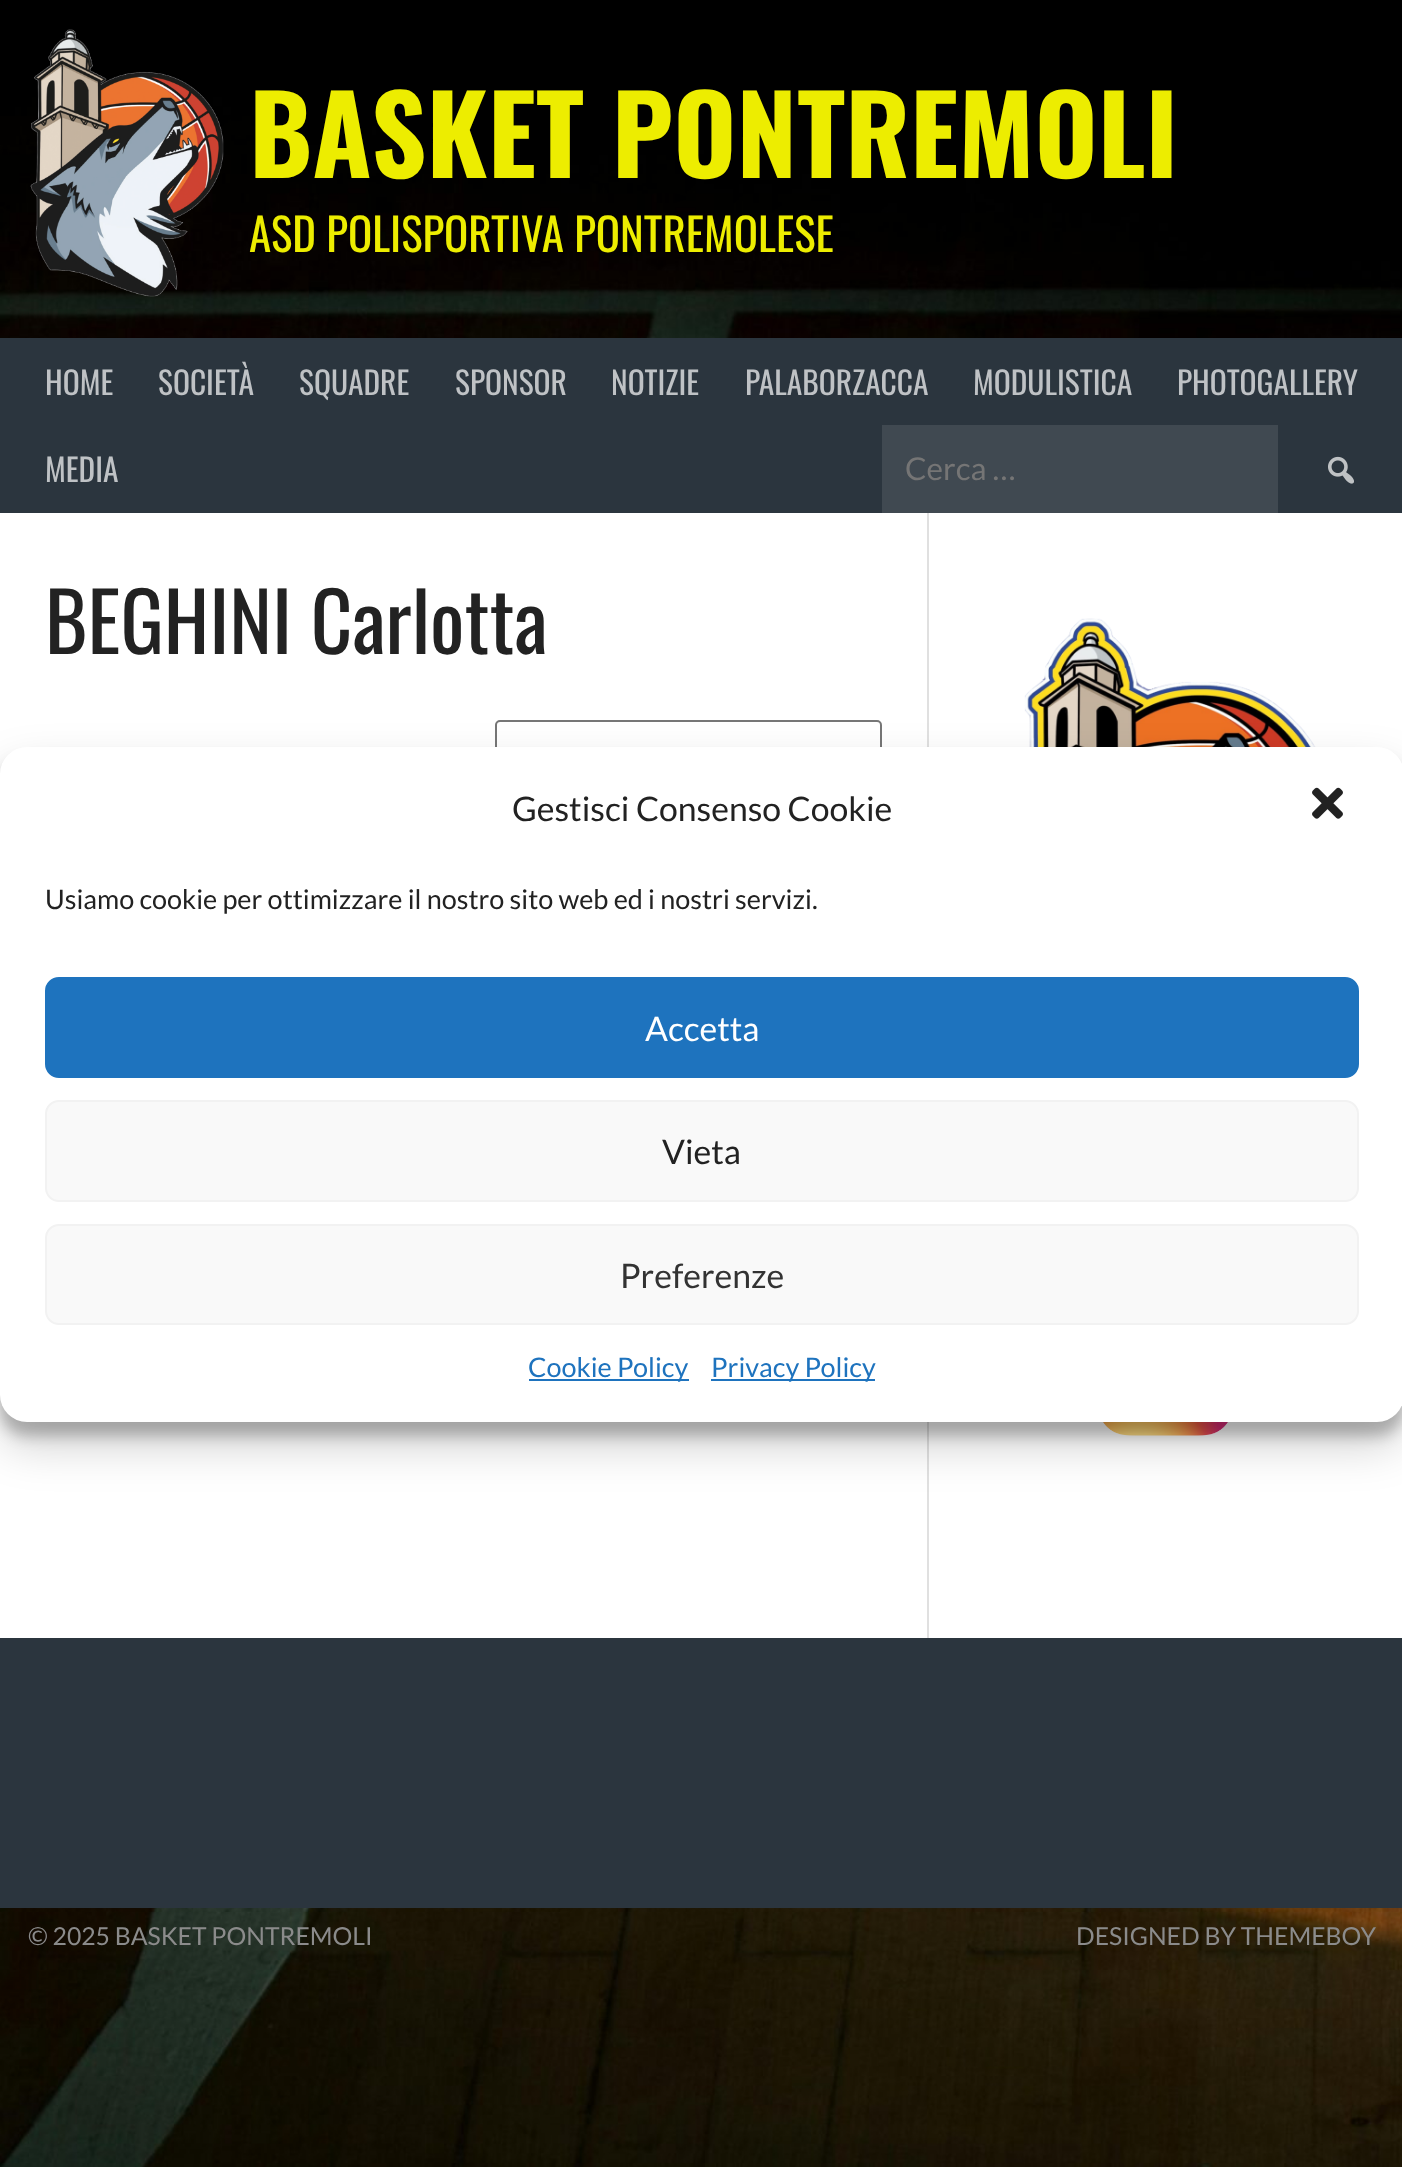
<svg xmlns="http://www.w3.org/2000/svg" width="1402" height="2167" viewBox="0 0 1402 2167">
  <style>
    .t1 { font: bold 108px Oswald; fill: #eded00; }
    .t2 { font: 45px Oswald; fill: #eded00; }
    .t3 { font: 31.5px Oswald; fill: #bfc2c5; }
    .t4 { font: 31.5px Lato; fill: #757575; }
    .t5 { font: 81px Oswald; fill: #222; }
    .t6 { font: 33.75px Lato; fill: #222; }
    .t7 { font: 27px Lato; fill: #222; }
    .t8 { font: 33.75px Lato; fill: #fff; }
    .t9 { font: 33.75px Lato; fill: #333; }
    .t10 { font: 27px Lato; fill: #1e73be; }
    .t11 { font: 24.75px Lato; fill: #8b8b8b; }
  </style>
  <rect width="100%" height="100%" fill="#fff"/>
  <image x="0" y="0" width="1402" height="2167" href="images/1.png"/>
  <image x="30" y="29" width="194" height="268" href="images/2.png"/>
  <text x="249" y="178" class="t1">BASKET PONTREMOLI</text>
  <text x="249" y="252" class="t2">ASD POLISPORTIVA PONTREMOLESE</text>
  <rect x="0" y="338" width="1402" height="175" fill="#2b353e"/>
  <text x="45" y="395" class="t3">HOME</text>
  <text x="158" y="395" class="t3">SOCIETÀ</text>
  <text x="299" y="395" class="t3">SQUADRE</text>
  <text x="455" y="395" class="t3">SPONSOR</text>
  <text x="611" y="395" class="t3">NOTIZIE</text>
  <text x="745" y="395" class="t3">PALABORZACCA</text>
  <text x="973" y="395" class="t3">MODULISTICA</text>
  <text x="1177" y="395" class="t3">PHOTOGALLERY</text>
  <text x="45" y="482" class="t3">MEDIA</text>
  <rect x="882" y="425" width="396" height="88" fill="#404951"/>
  <text x="905" y="480" class="t4">Cerca …</text>
  <image x="1328" y="456" width="26" height="28" href="images/3.png"/>
  <rect x="0" y="513" width="1402" height="1125" fill="#fff"/>
  <rect x="927" y="513" width="2" height="1125" fill="#e0e0e0"/>
  <text x="45" y="654" class="t5">BEGHINI Carlotta</text>
  <rect x="496" y="721" width="385" height="88" rx="4" fill="none" stroke="#767676" stroke-width="2"/>
  <image x="1024" y="618" width="292" height="129" href="images/4.png"/>
  <image x="1103" y="1422" width="125" height="14" href="images/5.png"/>
  <rect x="0" y="1638" width="1402" height="270" fill="#2b353e"/>
  <rect x="0" y="761" width="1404" height="675" rx="27" fill="#0000003b" filter="blur(7px)"/>
  <rect x="0" y="770" width="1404" height="675" rx="27" fill="#00000030" filter="blur(22.5px)"/>
  <rect x="0" y="747" width="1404" height="675" rx="27" fill="#fff"/>
  <text x="512" y="821" class="t6">Gestisci Consenso Cookie</text>
  <image x="1312" y="787" width="31" height="32" href="images/6.png"/>
  <text x="45" y="909" class="t7">Usiamo cookie per ottimizzare il nostro sito web ed i nostri servizi.</text>
  <rect x="46" y="978" width="1312" height="99" rx="13" fill="#1e73be" stroke="#1e73be" stroke-width="2"/>
  <text x="645" y="1041" class="t8">Accetta</text>
  <rect x="46" y="1101" width="1312" height="100" rx="13" fill="#f9f9f9" stroke="#f2f2f2" stroke-width="2"/>
  <text x="662" y="1164" class="t6">Vieta</text>
  <rect x="46" y="1225" width="1312" height="99" rx="13" fill="#f9f9f9" stroke="#f2f2f2" stroke-width="2"/>
  <text x="620" y="1288" class="t9">Preferenze</text>
  <rect x="529" y="1379" width="160" height="2" fill="#1e73be"/>
  <text x="528" y="1377" class="t10">Cookie Policy</text>
  <rect x="711" y="1379" width="164" height="2" fill="#1e73be"/>
  <text x="711" y="1377" class="t10">Privacy Policy</text>
  <text x="28" y="1945" class="t11">© 2025 BASKET PONTREMOLI</text>
  <text x="1076" y="1945" class="t11">DESIGNED BY THEMEBOY</text>
</svg>
